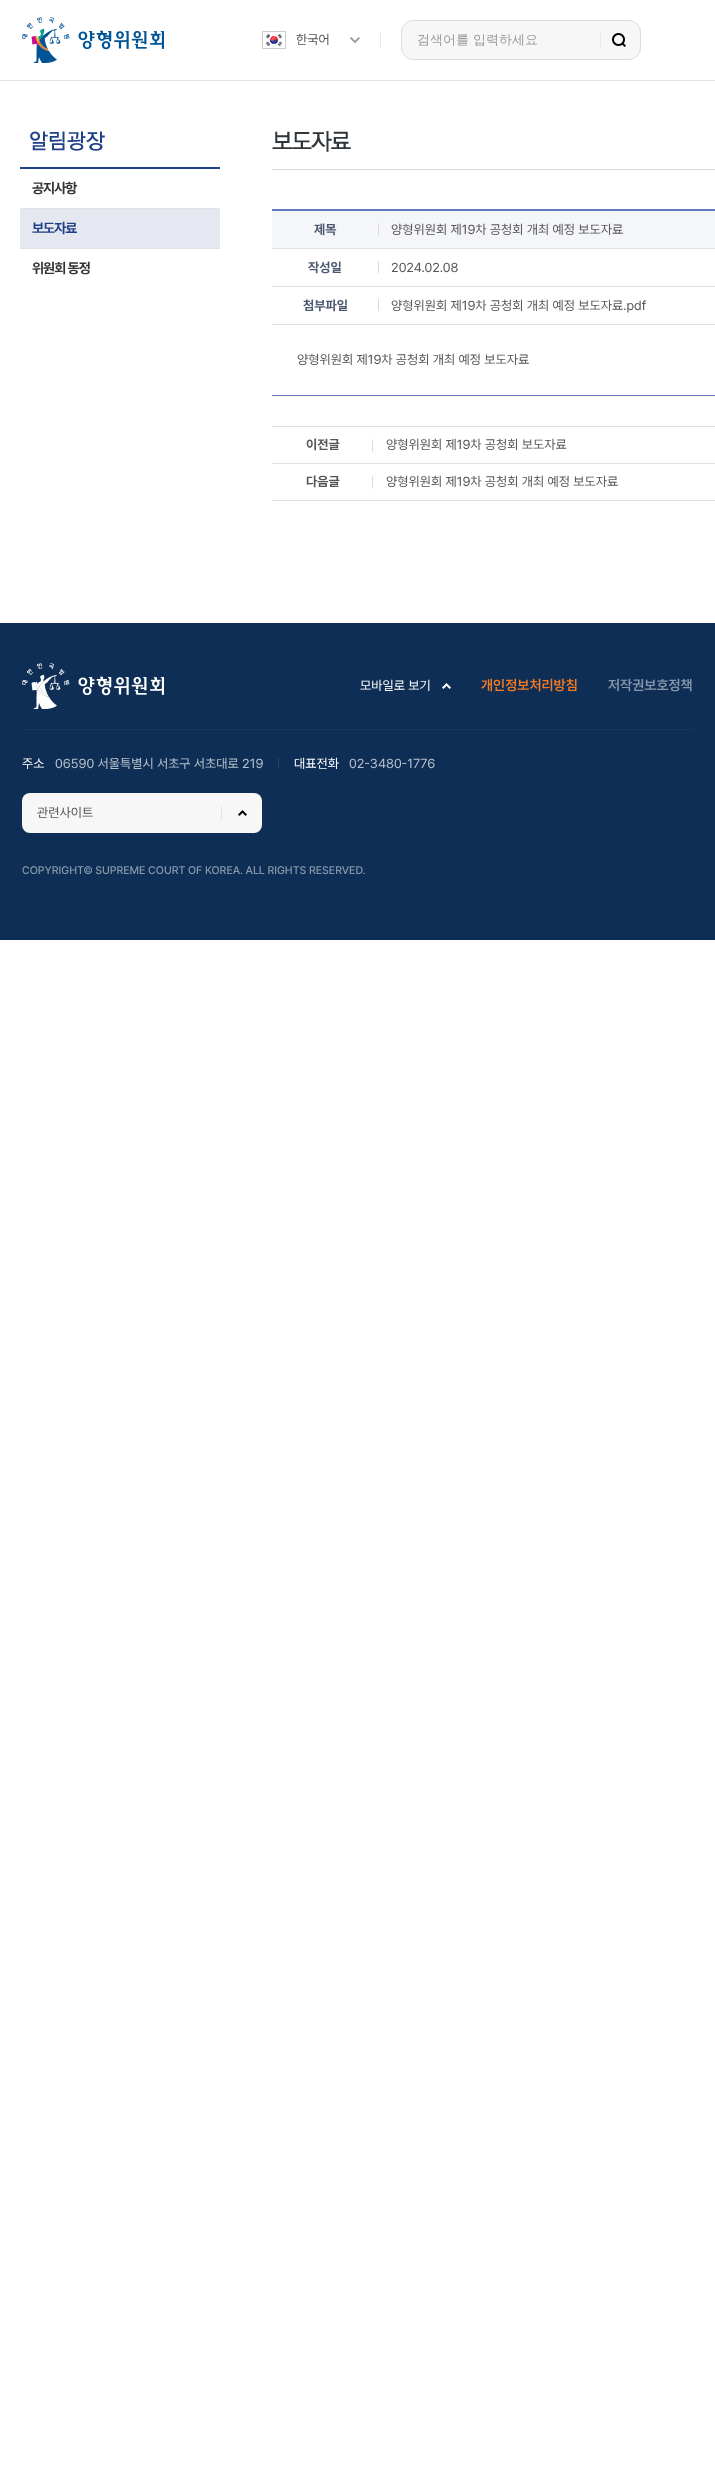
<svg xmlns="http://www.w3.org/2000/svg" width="715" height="2486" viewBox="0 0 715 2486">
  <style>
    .t1 { font: 13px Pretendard; fill: #555; }
    .t2 { font: 500 13px WenQuanYi Zen Hei; fill: #999; }
    .t3 { font: bold 14px Pretendard; letter-spacing: -1px; fill: #333; }
    .t4 { font: bold 14px Pretendard; letter-spacing: -1px; fill: #1f4187; }
    .t5 { font: bold 13px Pretendard; fill: #4c5770; }
    .t6 { font: bold 13px Pretendard; fill: #555; }
    .t7 { font: 13px Pretendard; fill: #fff; }
    .t8 { font: 600 14px Pretendard; fill: #f47b21; }
    .t9 { font: 600 14px Pretendard; fill: #8797aa; }
    .t10 { font: 13px Pretendard; fill: #b7c0cc; }
    .t11 { font: 500 11px Pretendard; fill: #8797aa; }
  </style>
  <rect width="100%" height="100%" fill="#fff"/>
  <rect x="0" y="80" width="715" height="1" fill="#e5e5e5"/>
  <image x="22" y="17" width="142" height="46" href="images/1.png"/>
  <image x="262" y="31" width="24" height="18" href="images/2.png"/>
  <text x="296" y="44" class="t1">한국어</text>
  <image x="350" y="37" width="10" height="6" href="images/3.png"/>
  <rect x="380" y="33" width="1" height="14" fill="#e5e5e5"/>
  <rect x="401.5" y="20.5" width="239" height="39" rx="11.5" fill="#f7f7f7" stroke="#ddd"/>
  <text x="417" y="44" class="t2">검색어를 입력하세요</text>
  <rect x="600" y="33" width="1" height="14" fill="#e5e5e5"/>
  <image x="612" y="33" width="14" height="14" href="images/4.png"/>
  <rect x="20" y="167" width="200" height="2" fill="#1f4187"/>
  <image x="30" y="131" width="75" height="20" href="images/5.png"/>
  <text x="32" y="193" class="t3">공지사항</text>
  <rect x="20" y="208" width="200" height="1" fill="#dfe1e3"/>
  <rect x="20" y="209" width="200" height="39" fill="#e5e8f0"/>
  <text x="32" y="233" class="t4">보도자료</text>
  <rect x="20" y="248" width="200" height="1" fill="#dfe1e3"/>
  <text x="32" y="273" class="t3">위원회 동정</text>
  <rect x="272" y="169" width="443" height="1" fill="#d8dada"/>
  <image x="272" y="131" width="79" height="21" href="images/6.png"/>
  <rect x="272" y="209" width="443" height="2" fill="#5e7bbd"/>
  <rect x="272" y="395" width="443" height="1" fill="#5e7bbd"/>
  <rect x="272" y="211" width="443" height="37" fill="#f5f6f9"/>
  <rect x="378" y="223" width="1" height="12" fill="#dadada"/>
  <text x="314" y="234" class="t5">제목</text>
  <rect x="272" y="248" width="443" height="1" fill="#dfdfdf"/>
  <text x="391" y="234" class="t1">양형위원회 제19차 공청회 개최 예정 보도자료</text>
  <rect x="378" y="261" width="1" height="12" fill="#dadada"/>
  <text x="308" y="272" class="t5">작성일</text>
  <rect x="272" y="286" width="443" height="1" fill="#dfdfdf"/>
  <text x="391" y="272" class="t1">2024.02.08</text>
  <rect x="378" y="299" width="1" height="12" fill="#dadada"/>
  <text x="303" y="310" class="t5">첨부파일</text>
  <rect x="272" y="324" width="443" height="1" fill="#dfdfdf"/>
  <text x="391" y="310" class="t1">양형위원회 제19차 공청회 개최 예정 보도자료.pdf</text>
  <text x="297" y="364" class="t1">양형위원회 제19차 공청회 개최 예정 보도자료</text>
  <rect x="272" y="426" width="443" height="1" fill="#dfdfdf"/>
  <image x="372" y="439" width="1" height="13" href="images/7.png"/>
  <rect x="272" y="463" width="443" height="1" fill="#dfdfdf"/>
  <text x="306" y="449" class="t6">이전글</text>
  <text x="386" y="449" class="t1">양형위원회 제19차 공청회 보도자료</text>
  <image x="372" y="476" width="1" height="13" href="images/7.png"/>
  <rect x="272" y="500" width="443" height="1" fill="#dfdfdf"/>
  <text x="306" y="486" class="t6">다음글</text>
  <text x="386" y="486" class="t1">양형위원회 제19차 공청회 개최 예정 보도자료</text>
  <rect x="0" y="623" width="715" height="317" fill="#0e2e55"/>
  <image x="22" y="663" width="142" height="46" href="images/8.png"/>
  <text x="360" y="690" class="t7">모바일로 보기</text>
  <image x="442" y="683" width="9" height="6" href="images/9.png"/>
  <text x="481" y="690" class="t8">개인정보처리방침</text>
  <text x="608" y="690" class="t9">저작권보호정책</text>
  <rect x="22" y="729" width="671" height="1" fill="#1a385e"/>
  <text x="22" y="768" class="t7">주소</text>
  <text x="55" y="768" class="t10">06590 서울특별시 서초구 서초대로 219</text>
  <rect x="278" y="758" width="1" height="10" fill="#264366"/>
  <text x="294" y="768" class="t7">대표전화</text>
  <text x="349" y="768" class="t10">02-3480-1776</text>
  <rect x="22" y="793" width="240" height="40" rx="8" fill="#f7f7f7"/>
  <text x="37" y="817" class="t1">관련사이트</text>
  <image x="238" y="810" width="9" height="6" href="images/10.png"/>
  <rect x="221" y="806" width="1" height="14" fill="#e5e5e5"/>
  <text x="22" y="874" class="t11">COPYRIGHT© SUPREME COURT OF KOREA. ALL RIGHTS RESERVED.</text>
</svg>
